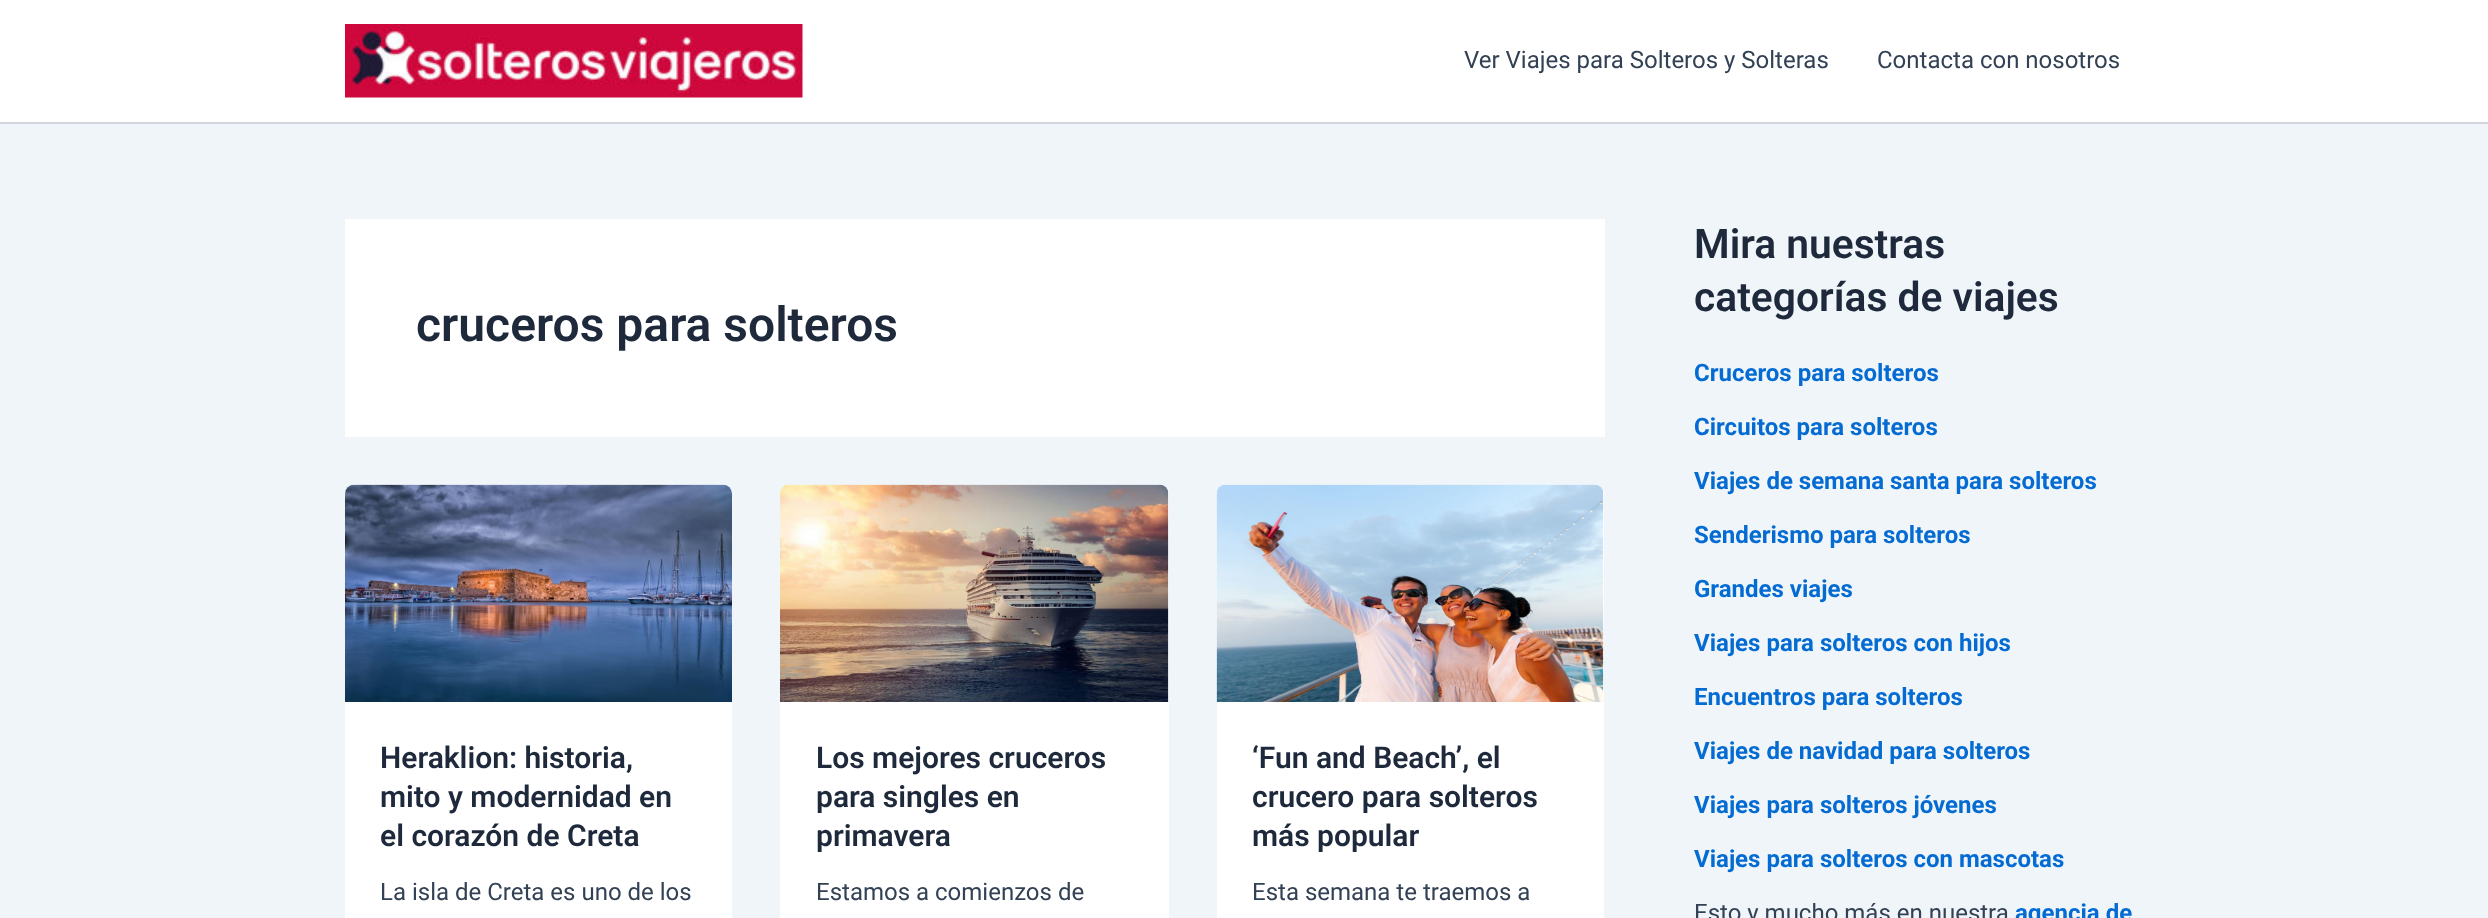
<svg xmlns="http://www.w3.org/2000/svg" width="2488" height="918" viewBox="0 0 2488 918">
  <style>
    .t1 { font: 24px Roboto; fill: #334155; }
    .t2 { font: 600 48px Roboto; fill: #1e293b; }
    .t3 { font: 600 30px Roboto; fill: #1e293b; }
    .t4 { font: 600 40.75px Roboto; fill: #1e293b; }
    .t5 { font: bold 24px Roboto; fill: #046bd2; }
  </style>
  <rect width="100%" height="100%" fill="#f0f5fa"/>
  <rect x="0" y="0" width="2488" height="122" fill="#fff"/>
  <rect x="0" y="122" width="2488" height="2" fill="#d1d5db"/>
  <image x="345" y="24" width="458" height="74" href="images/1.png"/>
  <text x="1464" y="68" class="t1">Ver Viajes para Solteros y Solteras</text>
  <text x="1877" y="68" class="t1">Contacta con nosotros</text>
  <rect x="345" y="219" width="1260" height="218" fill="#fff"/>
  <text x="416" y="341" class="t2">cruceros para solteros</text>
  <rect x="345" y="485" width="387" height="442" rx="9" fill="#fff"/>
  <image x="345" y="484" width="387" height="218" href="images/2.png"/>
  <text x="380" y="768" class="t3">Heraklion: historia,</text>
  <text x="380" y="807" class="t3">mito y modernidad en</text>
  <text x="380" y="846" class="t3">el corazón de Creta</text>
  <text x="380" y="900" class="t1">La isla de Creta es uno de los</text>
  <rect x="780" y="485" width="389" height="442" rx="9" fill="#fff"/>
  <image x="780" y="484" width="389" height="218" href="images/3.png"/>
  <text x="816" y="768" class="t3">Los mejores cruceros</text>
  <text x="816" y="807" class="t3">para singles en</text>
  <text x="816" y="846" class="t3">primavera</text>
  <text x="816" y="900" class="t1">Estamos a comienzos de</text>
  <rect x="1217" y="485" width="387" height="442" rx="9" fill="#fff"/>
  <image x="1216" y="484" width="388" height="218" href="images/4.png"/>
  <text x="1252" y="768" class="t3">‘Fun and Beach’, el</text>
  <text x="1252" y="807" class="t3">crucero para solteros</text>
  <text x="1252" y="846" class="t3">más popular</text>
  <text x="1252" y="900" class="t1">Esta semana te traemos a</text>
  <text x="1694" y="258" class="t4">Mira nuestras</text>
  <text x="1694" y="311" class="t4">categorías de viajes</text>
  <text x="1694" y="381" class="t5">Cruceros para solteros</text>
  <text x="1694" y="435" class="t5">Circuitos para solteros</text>
  <text x="1694" y="489" class="t5">Viajes de semana santa para solteros</text>
  <text x="1694" y="543" class="t5">Senderismo para solteros</text>
  <text x="1694" y="597" class="t5">Grandes viajes</text>
  <text x="1694" y="651" class="t5">Viajes para solteros con hijos</text>
  <text x="1694" y="705" class="t5">Encuentros para solteros</text>
  <text x="1694" y="759" class="t5">Viajes de navidad para solteros</text>
  <text x="1694" y="813" class="t5">Viajes para solteros jóvenes</text>
  <text x="1694" y="867" class="t5">Viajes para solteros con mascotas</text>
  <text x="1694" y="921" class="t1">Esto y mucho más en nuestra</text>
  <text x="2015" y="921" class="t5">agencia de</text>
</svg>
